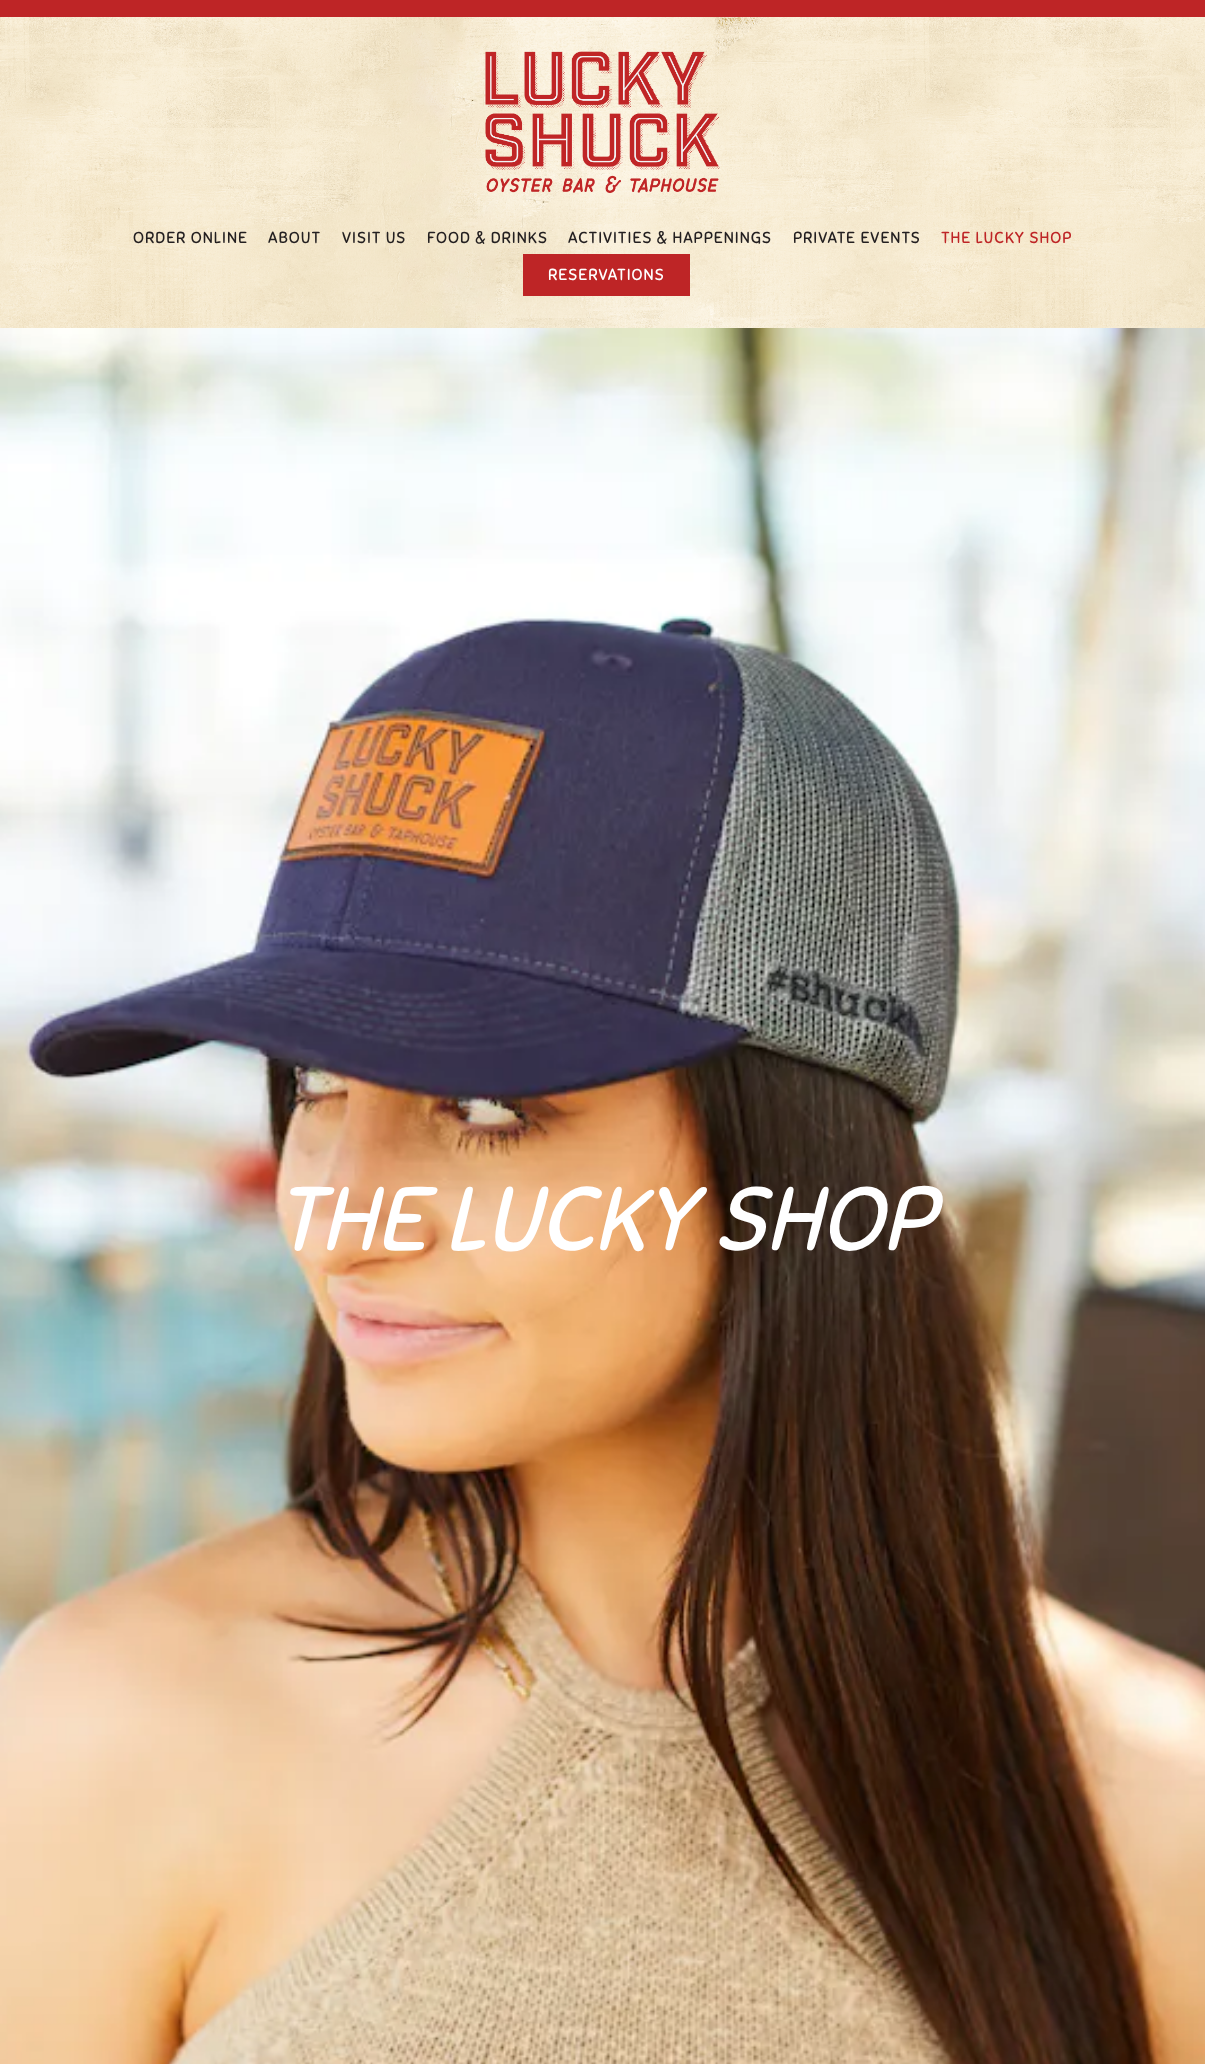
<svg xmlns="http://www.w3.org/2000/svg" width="1205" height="2064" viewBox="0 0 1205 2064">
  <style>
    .t1 { font: 16px Sniglet; letter-spacing: 1px; fill: #231f20; }
    .t2 { font: 16px Sniglet; letter-spacing: 1px; fill: #be2526; }
    .t3 { font: 16px Sniglet; letter-spacing: 1px; fill: #fff; }
    .t4 { font: italic 90px Sniglet; fill: #fff; }
  </style>
  <rect width="100%" height="100%" fill="#fff"/>
  <rect x="0" y="0" width="1205" height="17" fill="#be2526"/>
  <image x="0" y="17" width="1205" height="311" href="images/1.png"/>
  <image x="485" y="51" width="235" height="142" href="images/2.png"/>
  <text x="133" y="243" class="t1">ORDER ONLINE</text>
  <text x="268" y="243" class="t1">ABOUT</text>
  <text x="342" y="243" class="t1">VISIT US</text>
  <text x="427" y="243" class="t1">FOOD &amp; DRINKS</text>
  <text x="568" y="243" class="t1">ACTIVITIES &amp; HAPPENINGS</text>
  <text x="793" y="243" class="t1">PRIVATE EVENTS</text>
  <text x="941" y="243" class="t2">THE LUCKY SHOP</text>
  <rect x="523" y="254" width="167" height="42" fill="#be2526"/>
  <text x="548" y="280" class="t3">RESERVATIONS</text>
  <image x="0" y="328" width="1205" height="1736" href="images/3.png"/>
  <text x="273" y="1250" class="t4">THE LUCKY SHOP</text>
</svg>
